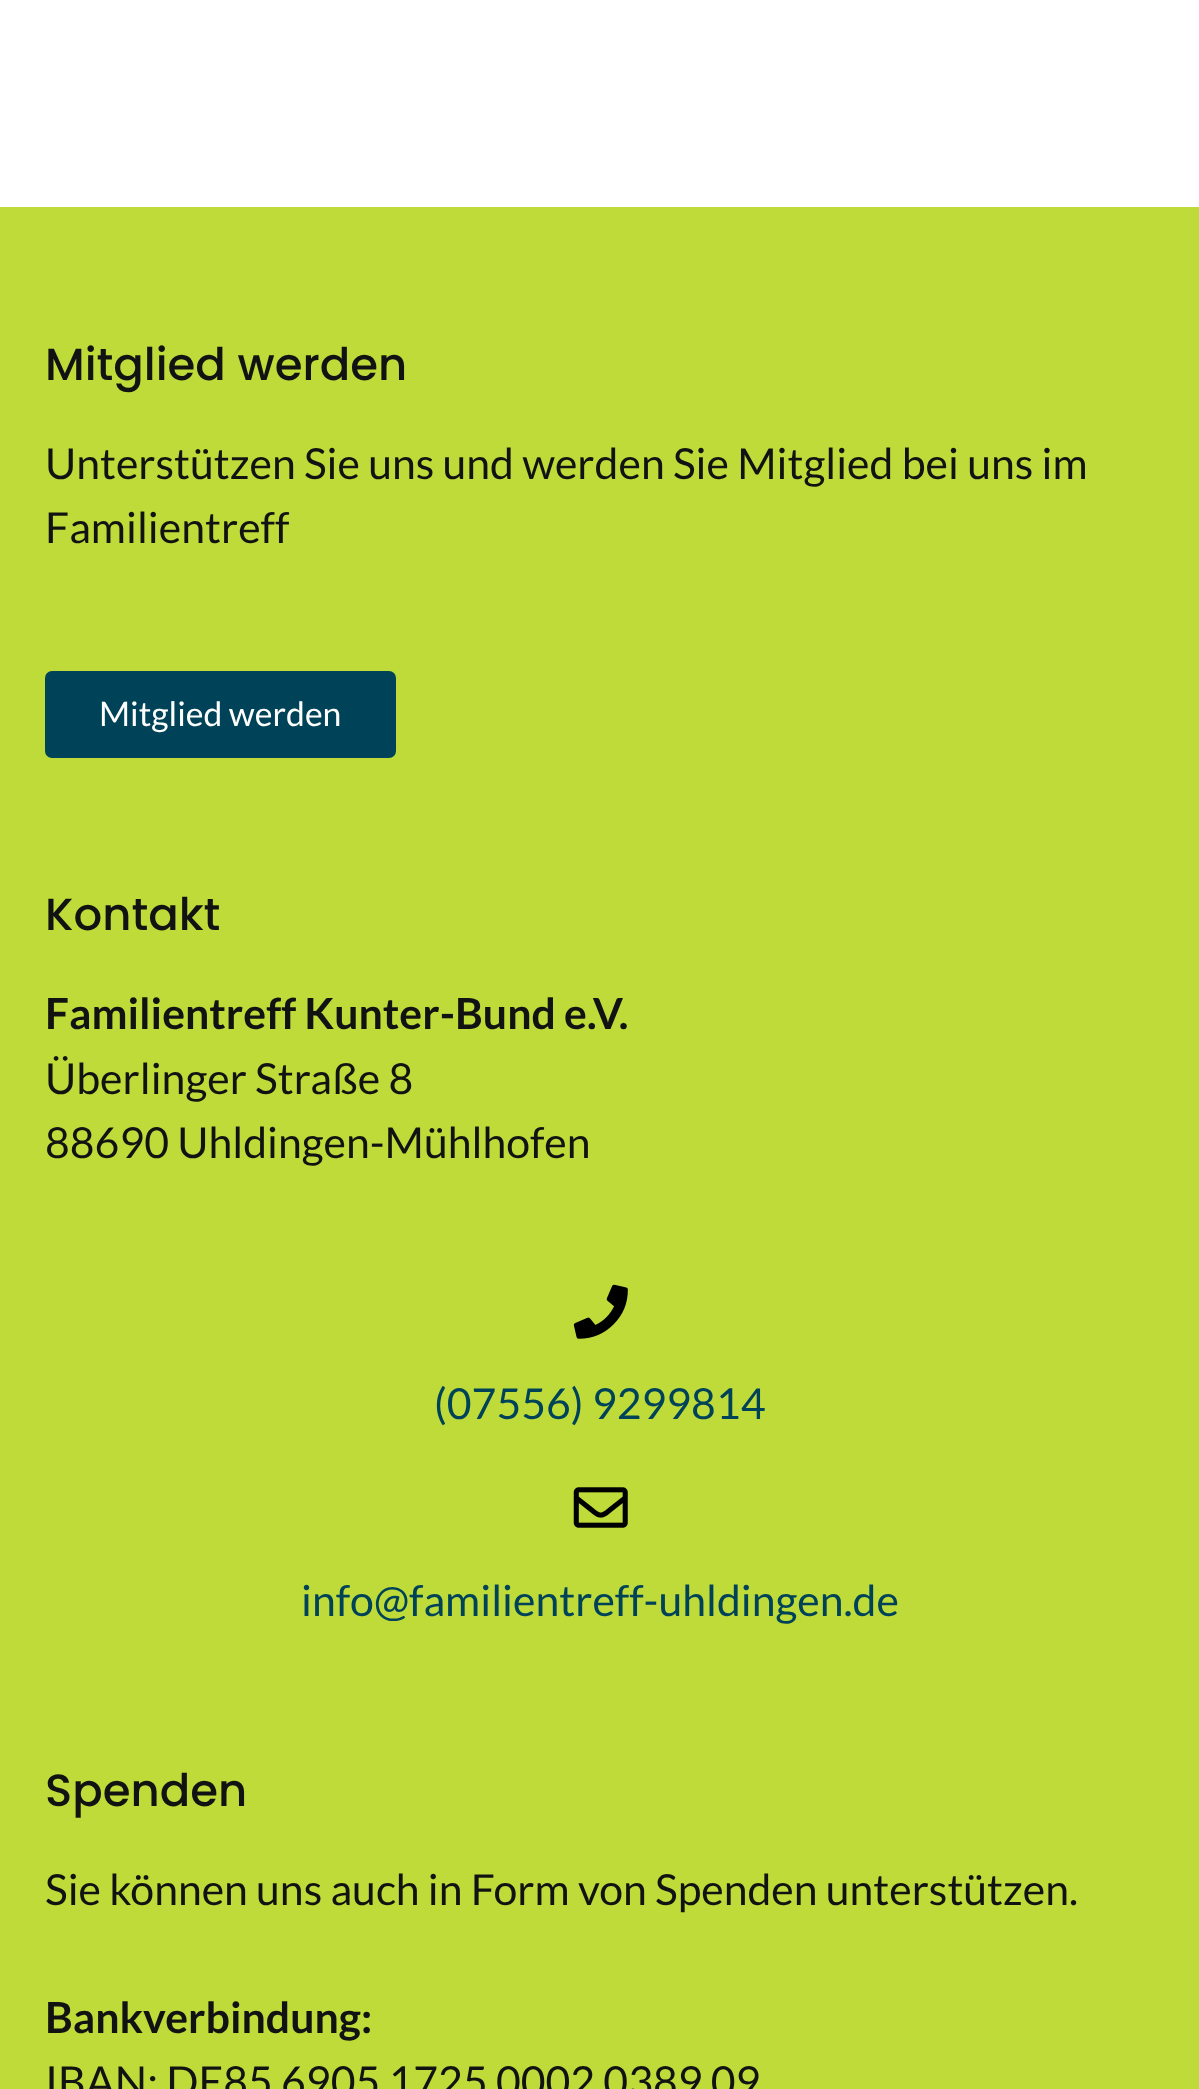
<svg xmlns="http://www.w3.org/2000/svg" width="1199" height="2089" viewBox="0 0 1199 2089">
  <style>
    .t1 { font: 500 45px Poppins; fill: #121212; }
    .t2 { font: 42.75px Lato; fill: #121212; }
    .t3 { font: 33.75px Lato; fill: #fff; }
    .t4 { font: bold 42.75px Lato; fill: #121212; }
    .t5 { font: 42.75px Lato; fill: #004358; }
  </style>
  <rect width="100%" height="100%" fill="#fff"/>
  <rect x="0" y="207" width="1199" height="1882" fill="#bedb39"/>
  <text x="45" y="380" class="t1">Mitglied werden</text>
  <text x="45" y="479" class="t2">Unterstützen Sie uns und werden Sie Mitglied bei uns im</text>
  <text x="45" y="543" class="t2">Familientreff</text>
  <rect x="45" y="671" width="351" height="87" rx="7" fill="#004358"/>
  <text x="99" y="726" class="t3">Mitglied werden</text>
  <text x="45" y="930" class="t1">Kontakt</text>
  <text x="45" y="1029" class="t4">Familientreff Kunter-Bund e.V.</text>
  <text x="45" y="1094" class="t2">Überlinger Straße 8</text>
  <text x="45" y="1158" class="t2">88690 Uhldingen-Mühlhofen</text>
  <image x="573" y="1284" width="55" height="55" href="images/1.png"/>
  <text x="434" y="1419" class="t5">(07556) 9299814</text>
  <image x="573" y="1487" width="55" height="41" href="images/2.png"/>
  <text x="301" y="1616" class="t5">info@familientreff-uhldingen.de</text>
  <text x="45" y="1806" class="t1">Spenden</text>
  <text x="45" y="1905" class="t2">Sie können uns auch in Form von Spenden unterstützen.</text>
  <text x="45" y="2033" class="t4">Bankverbindung:</text>
  <text x="45" y="2097" class="t2">IBAN: DE85 6905 1725 0002 0389 09</text>
</svg>
